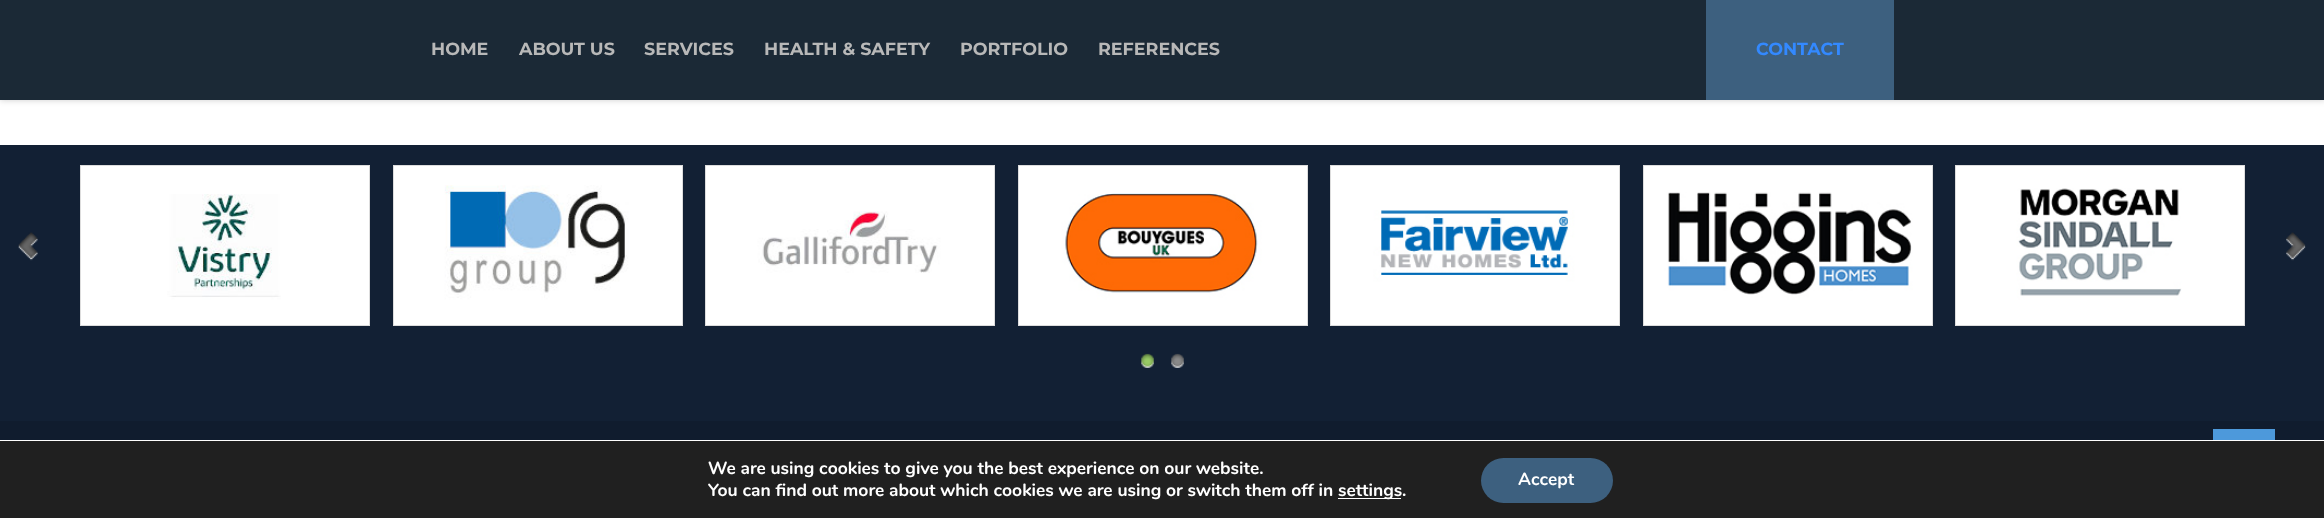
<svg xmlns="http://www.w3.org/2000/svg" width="2324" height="518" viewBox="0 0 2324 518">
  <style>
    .t1 { font: bold 17.5px Montserrat; fill: #b8b8b8; }
    .t2 { font: bold 17.5px Montserrat; fill: #3389ff; }
    .t3 { font: bold 17.5px Nunito; fill: #fff; }
  </style>
  <defs>
    <clipPath id="clip1"><rect x="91" y="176" width="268" height="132"/></clipPath>
    <clipPath id="clip2"><path d="M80 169H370V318H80ZM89 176H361V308H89Z" clip-rule="evenodd"/></clipPath>
    <clipPath id="clip3"><rect x="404" y="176" width="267" height="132"/></clipPath>
    <clipPath id="clip4"><path d="M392 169H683V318H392ZM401 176H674V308H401Z" clip-rule="evenodd"/></clipPath>
    <clipPath id="clip5"><rect x="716" y="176" width="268" height="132"/></clipPath>
    <clipPath id="clip6"><path d="M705 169H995V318H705ZM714 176H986V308H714Z" clip-rule="evenodd"/></clipPath>
    <clipPath id="clip7"><rect x="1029" y="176" width="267" height="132"/></clipPath>
    <clipPath id="clip8"><path d="M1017 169H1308V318H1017ZM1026 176H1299V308H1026Z" clip-rule="evenodd"/></clipPath>
    <clipPath id="clip9"><rect x="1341" y="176" width="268" height="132"/></clipPath>
    <clipPath id="clip10"><path d="M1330 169H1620V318H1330ZM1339 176H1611V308H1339Z" clip-rule="evenodd"/></clipPath>
    <clipPath id="clip11"><rect x="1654" y="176" width="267" height="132"/></clipPath>
    <clipPath id="clip12"><path d="M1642 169H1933V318H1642ZM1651 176H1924V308H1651Z" clip-rule="evenodd"/></clipPath>
    <clipPath id="clip13"><rect x="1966" y="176" width="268" height="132"/></clipPath>
    <clipPath id="clip14"><path d="M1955 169H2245V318H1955ZM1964 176H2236V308H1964Z" clip-rule="evenodd"/></clipPath>
  </defs>
  <rect width="100%" height="100%" fill="#fff"/>
  <rect x="0" y="0" width="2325" height="100" fill="#00000033" filter="blur(3px)"/>
  <rect x="0" y="0" width="2324" height="100" fill="#1b2936"/>
  <text x="431" y="55" class="t1">HOME</text>
  <text x="519" y="55" class="t1">ABOUT US</text>
  <text x="644" y="55" class="t1">SERVICES</text>
  <text x="764" y="55" class="t1">HEALTH &amp; SAFETY</text>
  <text x="960" y="55" class="t1">PORTFOLIO</text>
  <text x="1098" y="55" class="t1">REFERENCES</text>
  <rect x="1706" y="0" width="188" height="100" fill="#3d607f"/>
  <text x="1756" y="55" class="t2">CONTACT</text>
  <rect x="0" y="145" width="2324" height="276" fill="#122034"/>
  <image x="18" y="232" width="20" height="29" href="images/1.png"/>
  <rect x="80.5" y="165.5" width="289" height="160" fill="#fff" stroke="#ddd"/>
  <g clip-path="url(#clip1)">
    <g clip-path="url(#clip2)">
      <rect x="89" y="178" width="272" height="131" fill="#00000033" filter="blur(2.5px)"/>
    </g>
  </g>
  <image x="91" y="194" width="268" height="114" href="images/2.png"/>
  <rect x="393.5" y="165.5" width="289" height="160" fill="#fff" stroke="#ddd"/>
  <g clip-path="url(#clip3)">
    <g clip-path="url(#clip4)">
      <rect x="401" y="178" width="273" height="131" fill="#00000033" filter="blur(2.5px)"/>
    </g>
  </g>
  <image x="404" y="185" width="267" height="123" href="images/3.png"/>
  <rect x="705.5" y="165.5" width="289" height="160" fill="#fff" stroke="#ddd"/>
  <g clip-path="url(#clip5)">
    <g clip-path="url(#clip6)">
      <rect x="714" y="178" width="272" height="131" fill="#00000033" filter="blur(2.5px)"/>
    </g>
  </g>
  <image x="716" y="211" width="268" height="97" href="images/4.png"/>
  <rect x="1018.5" y="165.5" width="289" height="160" fill="#fff" stroke="#ddd"/>
  <g clip-path="url(#clip7)">
    <g clip-path="url(#clip8)">
      <rect x="1026" y="178" width="273" height="131" fill="#00000033" filter="blur(2.5px)"/>
    </g>
  </g>
  <image x="1029" y="193" width="267" height="115" href="images/5.png"/>
  <rect x="1330.5" y="165.5" width="289" height="160" fill="#fff" stroke="#ddd"/>
  <g clip-path="url(#clip9)">
    <g clip-path="url(#clip10)">
      <rect x="1339" y="178" width="272" height="131" fill="#00000033" filter="blur(2.5px)"/>
    </g>
  </g>
  <image x="1341" y="210" width="268" height="98" href="images/6.png"/>
  <rect x="1643.5" y="165.5" width="289" height="160" fill="#fff" stroke="#ddd"/>
  <g clip-path="url(#clip11)">
    <g clip-path="url(#clip12)">
      <rect x="1651" y="178" width="273" height="131" fill="#00000033" filter="blur(2.5px)"/>
    </g>
  </g>
  <image x="1654" y="192" width="267" height="116" href="images/7.png"/>
  <rect x="1955.5" y="165.5" width="289" height="160" fill="#fff" stroke="#ddd"/>
  <g clip-path="url(#clip13)">
    <g clip-path="url(#clip14)">
      <rect x="1964" y="178" width="272" height="131" fill="#00000033" filter="blur(2.5px)"/>
    </g>
  </g>
  <image x="1966" y="188" width="268" height="120" href="images/8.png"/>
  <image x="2286" y="232" width="20" height="29" href="images/9.png"/>
  <image x="1141" y="353" width="13" height="15" href="images/10.png"/>
  <image x="1171" y="353" width="13" height="15" href="images/11.png"/>
  <rect x="0" y="421" width="2324" height="19" fill="#101c2e"/>
  <rect x="2213" y="429" width="62" height="11" fill="#4d99db"/>
  <rect x="0" y="441" width="2324" height="77" fill="#202020"/>
  <text x="708" y="474" class="t3">We are using cookies to give you the best experience on our website.</text>
  <text x="708" y="496" class="t3">You can find out more about which cookies we are using or switch them off in</text>
  <rect x="1338" y="498" width="63" height="1" fill="#fff"/>
  <text x="1338" y="496" class="t3">settings.</text>
  <rect x="1481" y="458" width="132" height="45" rx="22.5" fill="#3d607f"/>
  <text x="1518" y="485" class="t3">Accept</text>
</svg>
